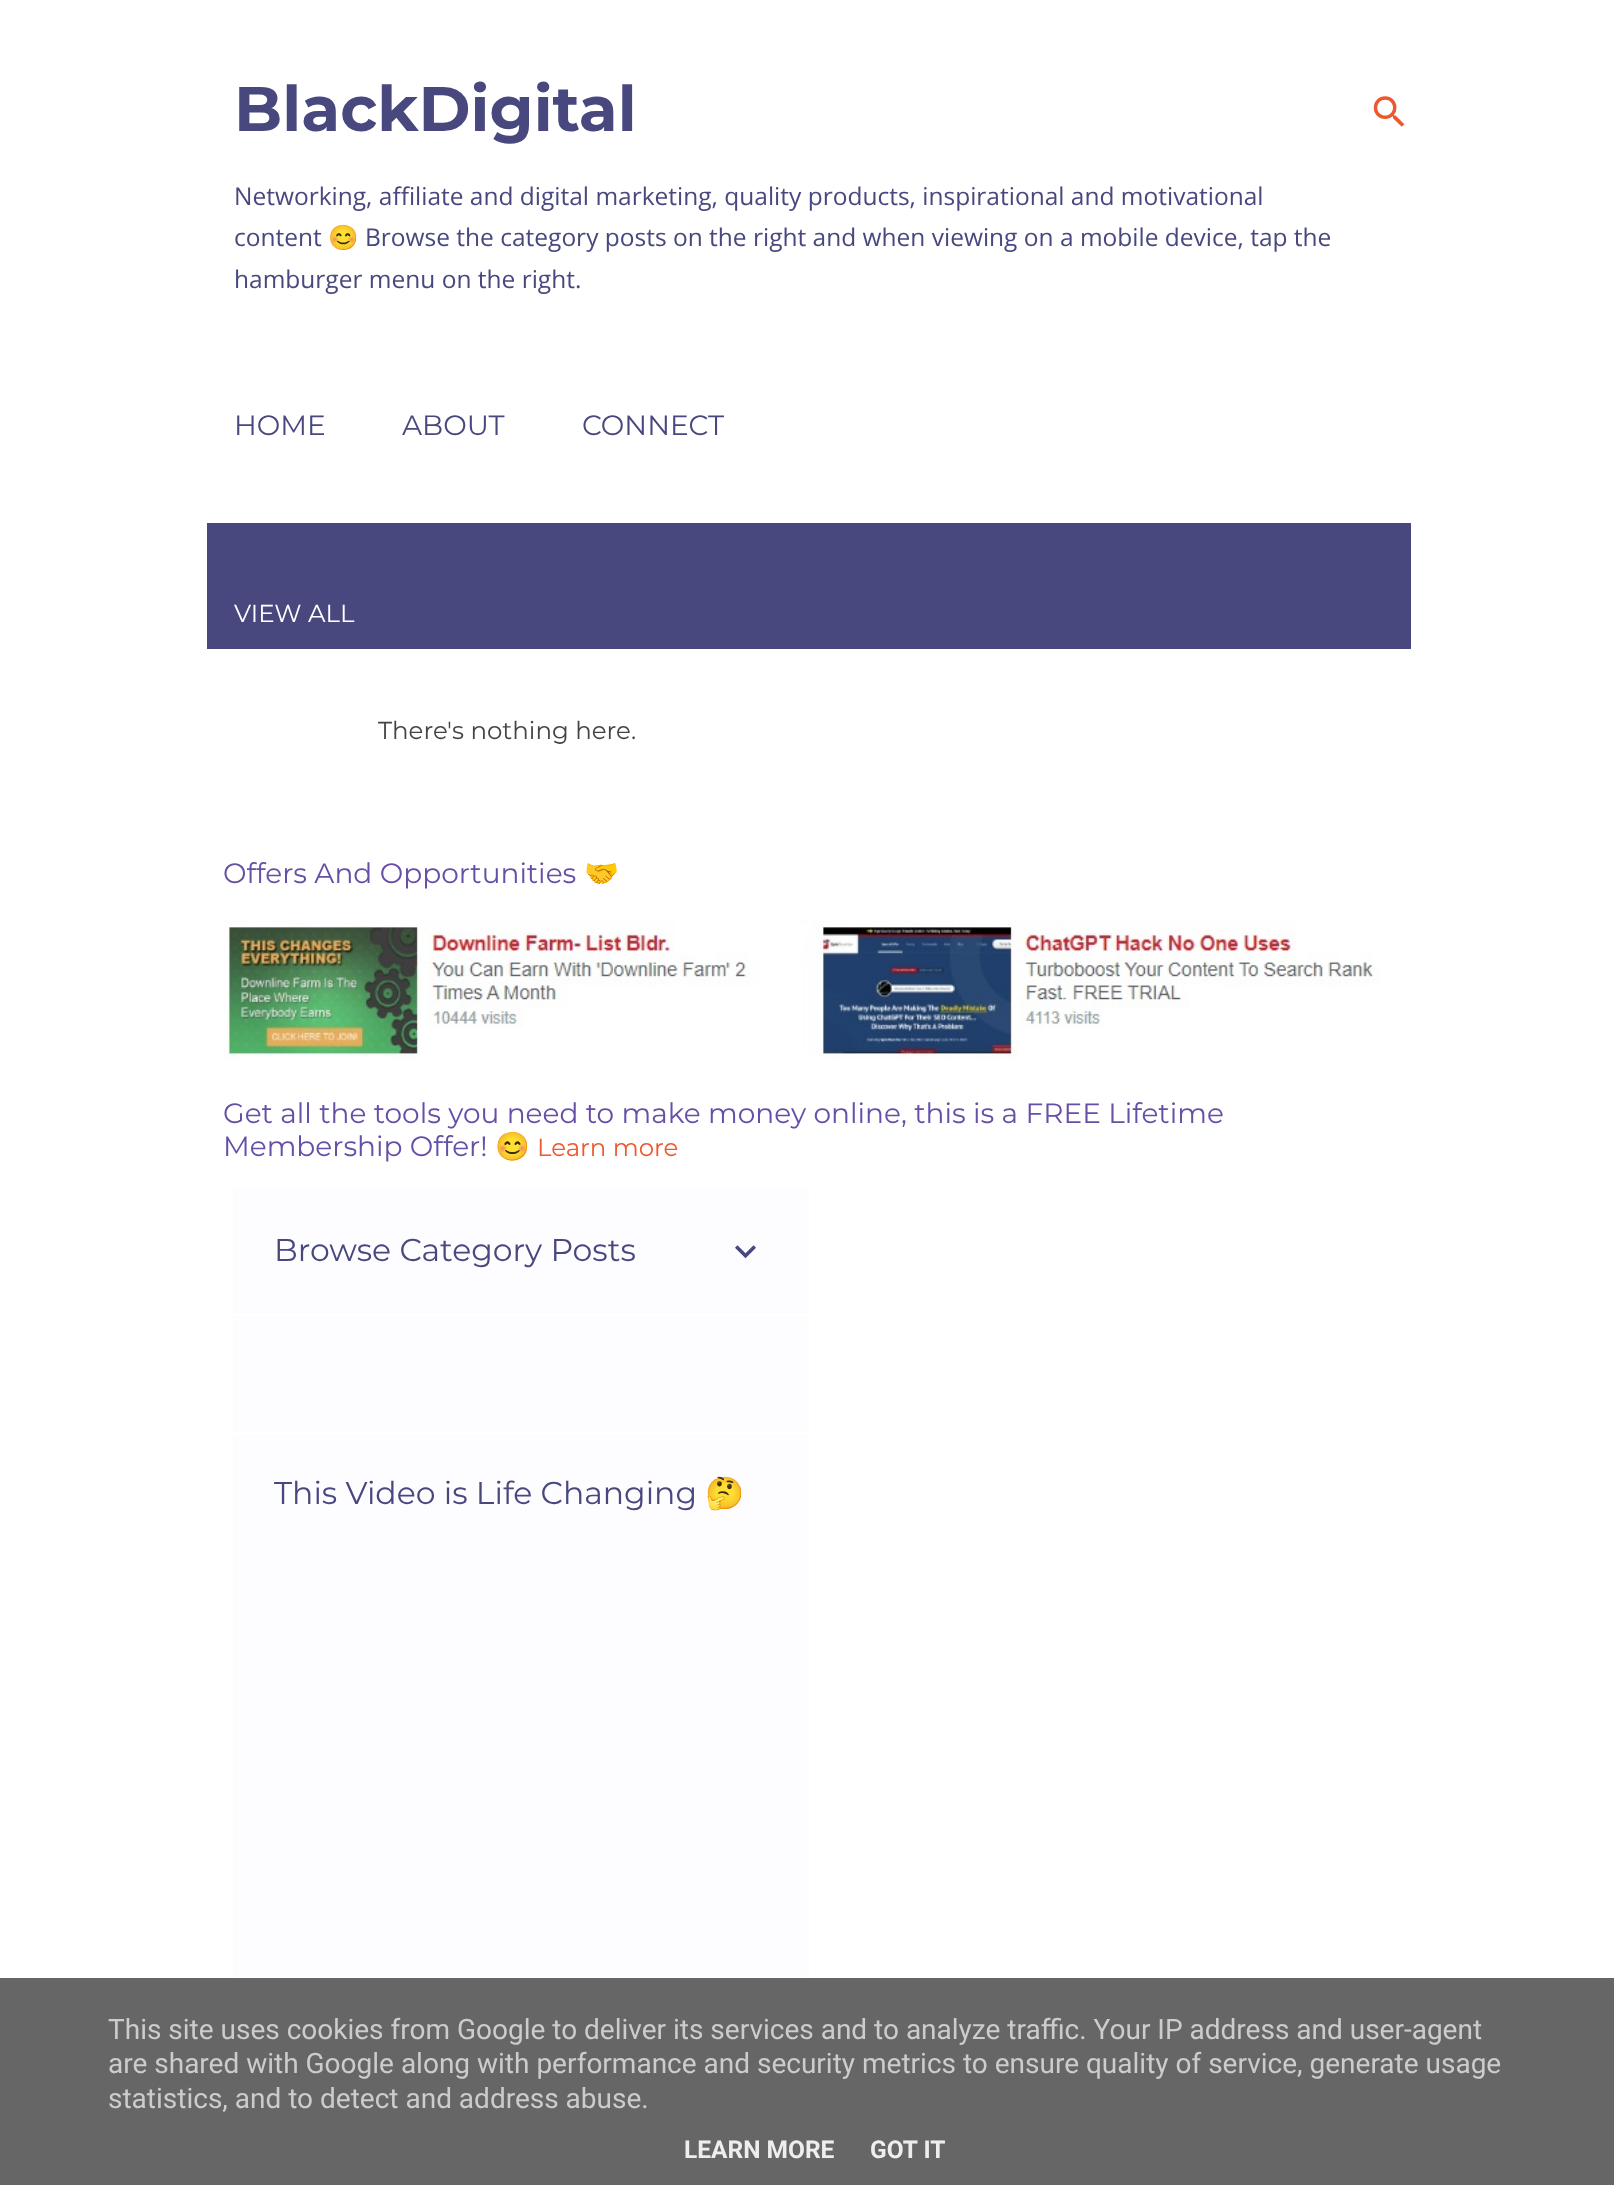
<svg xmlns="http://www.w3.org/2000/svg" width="1614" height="2185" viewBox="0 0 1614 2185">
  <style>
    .t1 { font: bold 63px Montserrat; fill: #48487f; }
    .t2 { font: 24.5px Open Sans; fill: #48487f; }
    .t3 { font: 24.5px Noto Color Emoji; fill: #48487f; }
    .t4 { font: 100 28px Montserrat; fill: #48487f; }
    .t5 { font: 100 24.5px Montserrat; fill: #fff; }
    .t6 { font: 100 24.5px Montserrat; fill: #444; }
    .t7 { font: 100 28px Montserrat; fill: #674ea7; }
    .t8 { font: 28px Noto Color Emoji; fill: #674ea7; }
    .t9 { font: 100 24.5px Montserrat; fill: #ee582e; }
    .t10 { font: 100 31.5px Montserrat; fill: #48487f; }
    .t11 { font: 31.5px Noto Color Emoji; fill: #48487f; }
    .t12 { font: 28px Roboto; fill: #ccc; }
    .t13 { font: bold 24.5px Roboto; fill: #eee; }
  </style>
  <rect width="100%" height="100%" fill="#fff"/>
  <text x="234" y="131" class="t1">BlackDigital</text>
  <text x="234" y="205" class="t2">Networking, affiliate and digital marketing, quality products, inspirational and motivational</text>
  <text x="234" y="246" class="t2">content</text>
  <text x="328" y="246" class="t3">😊</text>
  <text x="365" y="246" class="t2">Browse the category posts on the right and when viewing on a mobile device, tap the</text>
  <text x="234" y="288" class="t2">hamburger menu on the right.</text>
  <image x="1373" y="96" width="32" height="31" href="images/1.png"/>
  <text x="234" y="435" class="t4">HOME</text>
  <text x="402" y="435" class="t4">ABOUT</text>
  <text x="582" y="435" class="t4">CONNECT</text>
  <rect x="207" y="523" width="1204" height="126" fill="#48487f"/>
  <text x="234" y="622" class="t5">VIEW ALL</text>
  <text x="378" y="739" class="t6">There's nothing here.</text>
  <text x="223" y="883" class="t7">Offers And Opportunities</text>
  <text x="584" y="883" class="t8">🤝</text>
  <image x="224" y="920" width="1158" height="139" href="images/2.png"/>
  <text x="223" y="1123" class="t7">Get all the tools you need to make money online, this is a FREE Lifetime</text>
  <text x="223" y="1156" class="t7">Membership Offer!</text>
  <text x="495" y="1156" class="t8">😊</text>
  <text x="537" y="1156" class="t9">Learn more</text>
  <rect x="233" y="1188" width="576" height="790" fill="#fdfcff"/>
  <text x="274" y="1261" class="t10">Browse Category Posts</text>
  <image x="735" y="1245" width="21" height="14" href="images/3.png"/>
  <rect x="233" y="1314" width="576" height="2" fill="#fff"/>
  <rect x="233" y="1432" width="576" height="2" fill="#fff"/>
  <text x="274" y="1504" class="t10">This Video is Life Changing</text>
  <text x="705" y="1504" class="t11">🤔</text>
  <rect x="0" y="1978" width="1614" height="207" fill="#666"/>
  <text x="108" y="2039" class="t12">This site uses cookies from Google to deliver its services and to analyze traffic. Your IP address and user-agent</text>
  <text x="108" y="2073" class="t12">are shared with Google along with performance and security metrics to ensure quality of service, generate usage</text>
  <text x="108" y="2108" class="t12">statistics, and to detect and address abuse.</text>
  <text x="684" y="2158" class="t13">LEARN MORE</text>
  <text x="870" y="2158" class="t13">GOT IT</text>
</svg>
